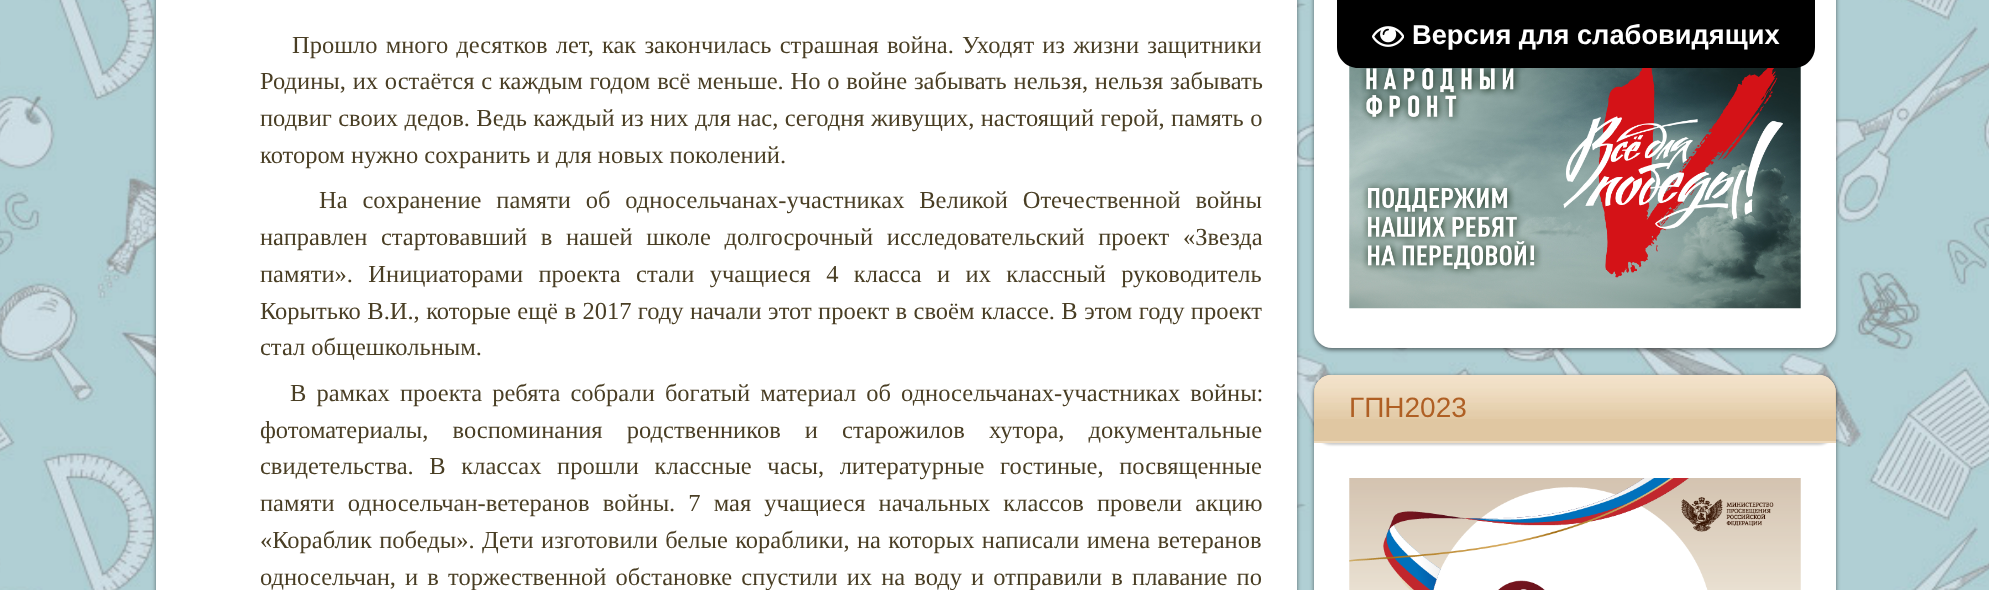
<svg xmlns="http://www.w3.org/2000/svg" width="1989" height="590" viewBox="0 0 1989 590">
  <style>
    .t1 { font: 24.5px Liberation Serif; fill: #493e24; }
    .t2 { font: 28px Liberation Sans; fill: #af5f24; }
    .t3 { font: bold 27.25px Liberation Sans; fill: #fff; }
  </style>
  <rect width="100%" height="100%" fill="#fff"/>
  <image x="0" y="0" width="1989" height="590" href="images/1.png"/>
  <rect x="156" y="-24" width="1141" height="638" rx="18" fill="#00000080" filter="blur(2px)"/>
  <rect x="156" y="0" width="1141" height="590" fill="#fff"/>
  <text x="292" y="53" word-spacing="2" class="t1">Прошло много десятков лет, как закончилась страшная война. Уходят из жизни защитники</text>
  <text x="260" y="89" word-spacing="0.7" class="t1">Родины, их остаётся с каждым годом всё меньше. Но о войне забывать нельзя, нельзя забывать</text>
  <text x="260" y="126" word-spacing="0.25" class="t1">подвиг своих дедов. Ведь каждый из них для нас, сегодня живущих, настоящий герой, память о</text>
  <text x="260" y="163" class="t1">котором нужно сохранить и для новых поколений.</text>
  <text x="319" y="208" word-spacing="8.75" class="t1">На сохранение памяти об односельчанах-участниках Великой Отечественной войны</text>
  <text x="260" y="245" word-spacing="7.5" class="t1">направлен стартовавший в нашей школе долгосрочный исследовательский проект «Звезда</text>
  <text x="260" y="282" word-spacing="9.25" class="t1">памяти». Инициаторами проекта стали учащиеся 4 класса и их классный руководитель</text>
  <text x="260" y="319" word-spacing="0.3" class="t1">Корытько В.И., которые ещё в 2017 году начали этот проект в своём классе. В этом году проект</text>
  <text x="260" y="355" class="t1">стал общешкольным.</text>
  <text x="290" y="401" word-spacing="4" class="t1">В рамках проекта ребята собрали богатый материал об односельчанах-участниках войны:</text>
  <text x="260" y="438" word-spacing="18" class="t1">фотоматериалы, воспоминания родственников и старожилов хутора, документальные</text>
  <text x="260" y="474" word-spacing="9.5" class="t1">свидетельства. В классах прошли классные часы, литературные гостиные, посвященные</text>
  <text x="260" y="511" word-spacing="7" class="t1">памяти односельчан-ветеранов войны. 7 мая учащиеся начальных классов провели акцию</text>
  <text x="260" y="548" word-spacing="1.25" class="t1">«Кораблик победы». Дети изготовили белые кораблики, на которых написали имена ветеранов</text>
  <text x="260" y="585" word-spacing="3" class="t1">односельчан, и в торжественной обстановке спустили их на воду и отправили в плавание по</text>
  <rect x="1314" y="-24" width="522" height="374" rx="18" fill="#00000080" filter="blur(2px)"/>
  <rect x="1314" y="-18" width="522" height="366" rx="18" fill="#fff"/>
  <image x="1349" y="66" width="452" height="243" href="images/2.png"/>
  <rect x="1314" y="376" width="522" height="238" rx="18" fill="#00000080" filter="blur(2px)"/>
  <rect x="1314" y="375" width="522" height="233" rx="18" fill="#fff"/>
  <rect x="1314" y="376" width="522" height="69" rx="18" fill="#00000033" filter="blur(1px)"/>
  <path d="M1332 375H1818C1828 375 1836 383 1836 393V443H1314V393C1314 383 1322 375 1332 375Z" fill="#e0c7a2"/>
  <image x="1314" y="374" width="522" height="45" href="images/3.png"/>
  <rect x="1314" y="441" width="522" height="2" fill="#eddabe"/>
  <text x="1349" y="417" class="t2">ГПН2023</text>
  <image x="1349" y="478" width="452" height="112" href="images/4.png"/>
  <path d="M1337 0H1815V47C1815 58.5 1805.5 68 1794 68H1358C1346.5 68 1337 58.5 1337 47Z" fill="#000"/>
  <image x="1372" y="26" width="32" height="21" href="images/5.png"/>
  <text x="1412" y="44" class="t3">Версия для слабовидящих</text>
</svg>
